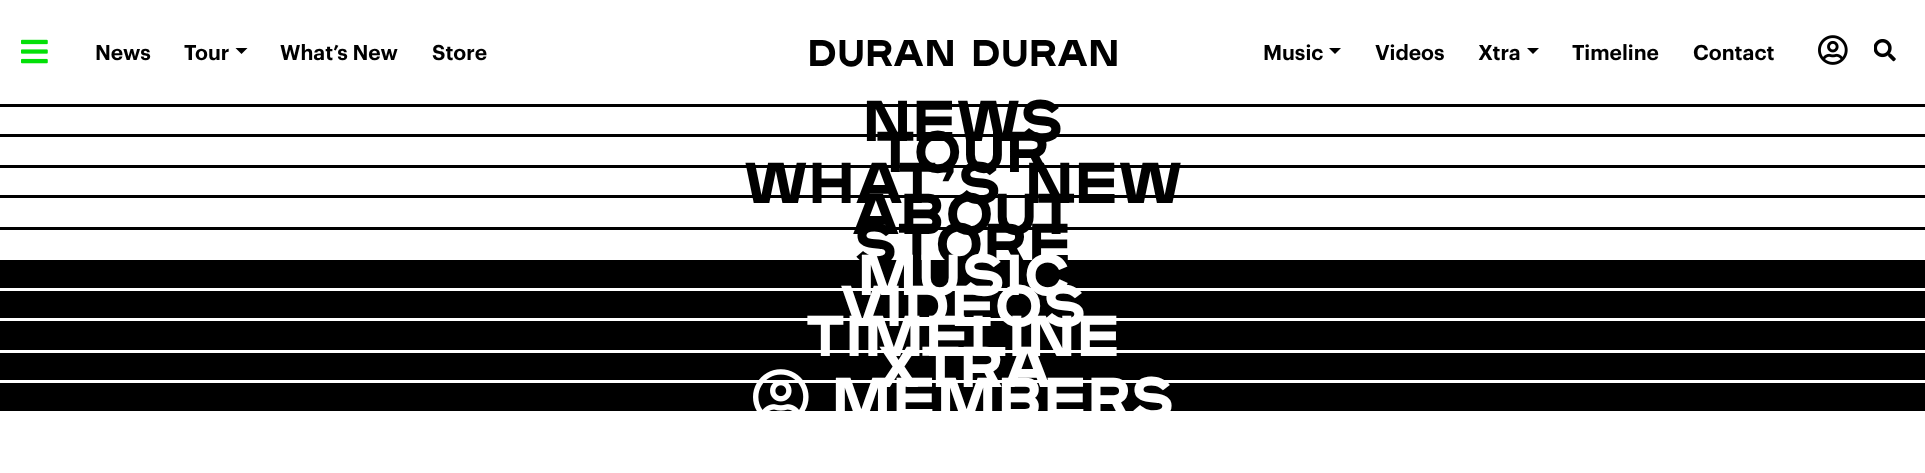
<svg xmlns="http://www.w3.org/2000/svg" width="1925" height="473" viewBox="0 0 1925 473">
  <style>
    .t1 { font: 900 37px 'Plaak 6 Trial'; fill: #000; }
    .t2 { font: 600 21px Graphik; fill: #000; }
    .t3 { font: 900 57.5px 'Plaak 6 Trial'; fill: #000; }
    .t4 { font: 900 57.5px 'Plaak 6 Trial'; fill: #fff; }
  </style>
  <rect width="100%" height="100%" fill="#fff"/>
  <text x="807" y="66" class="t1">Duran Duran</text>
  <image x="1818" y="35" width="30" height="30" href="images/1.png"/>
  <image x="1874" y="39" width="22" height="23" href="images/2.png"/>
  <text x="95" y="60" class="t2">News</text>
  <text x="184" y="60" class="t2">Tour</text>
  <path d="M235.5 48H247.5L241.5 54Z" fill="#000"/>
  <text x="280" y="60" class="t2">What’s New</text>
  <text x="432" y="60" class="t2">Store</text>
  <image x="21" y="39" width="27" height="25" href="images/3.png"/>
  <rect x="0" y="104" width="1925" height="3" fill="#000"/>
  <rect x="0" y="134" width="1925" height="3" fill="#000"/>
  <text x="862" y="141" class="t3">News</text>
  <rect x="0" y="165" width="1925" height="3" fill="#000"/>
  <text x="876" y="172" class="t3">Tour</text>
  <rect x="0" y="195" width="1925" height="3" fill="#000"/>
  <text x="744" y="203" class="t3">What’s New</text>
  <rect x="0" y="227" width="1925" height="3" fill="#000"/>
  <text x="852" y="234" class="t3">About</text>
  <rect x="0" y="260" width="1925" height="28" fill="#000"/>
  <text x="854" y="264" class="t3">Store</text>
  <rect x="0" y="291" width="1925" height="27" fill="#000"/>
  <text x="857" y="295" class="t4">Music</text>
  <rect x="0" y="321" width="1925" height="29" fill="#000"/>
  <text x="840" y="326" class="t4">Videos</text>
  <rect x="0" y="353" width="1925" height="27" fill="#000"/>
  <text x="806" y="356" class="t4">Timeline</text>
  <rect x="0" y="383" width="1925" height="28" fill="#000"/>
  <text x="876" y="387" class="t4">Xtra</text>
  <image x="753" y="369" width="56" height="42" href="images/4.png"/>
  <text x="831" y="418" class="t4">Members</text>
  <text x="1263" y="60" class="t2">Music</text>
  <path d="M1329 48H1341L1335 54Z" fill="#000"/>
  <text x="1375" y="60" class="t2">Videos</text>
  <text x="1478" y="60" class="t2">Xtra</text>
  <path d="M1527 48H1539L1533 54Z" fill="#000"/>
  <text x="1572" y="60" class="t2">Timeline</text>
  <text x="1693" y="60" class="t2">Contact</text>
</svg>
